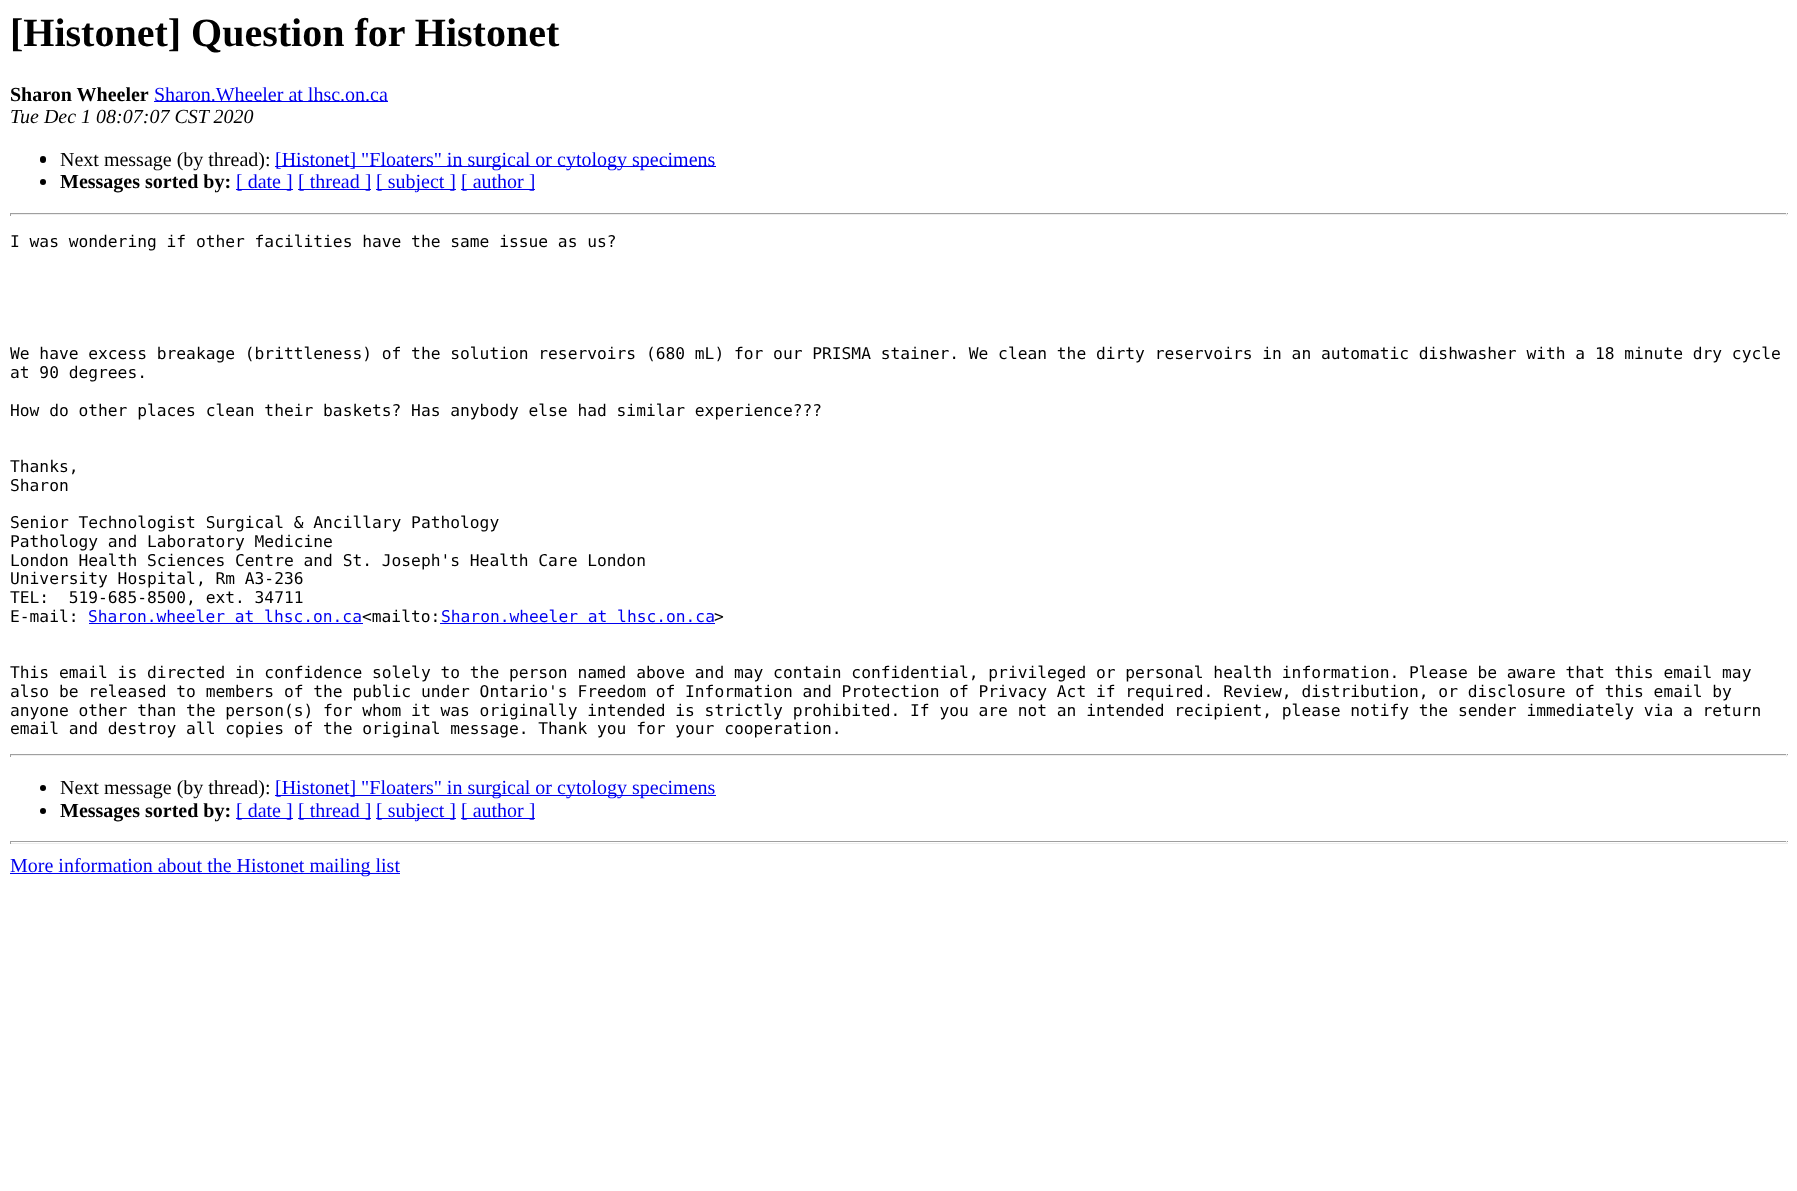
<svg xmlns="http://www.w3.org/2000/svg" width="1797" height="1191" viewBox="0 0 1797 1191">
  <style>
    .t1 { font: bold 40px Liberation Serif; fill: #000; }
    .t2 { font: bold 20px Liberation Serif; fill: #000; }
    .t3 { font: 20px Liberation Serif; fill: #00e; }
    .t4 { font: italic 20px Liberation Serif; fill: #000; }
    .t5 { font: 20px Liberation Serif; fill: #000; }
    .t6 { font: 16.25px DejaVu Sans Mono; fill: #000; }
    .t7 { font: 16.25px DejaVu Sans Mono; fill: #00e; }
  </style>
  <rect width="100%" height="100%" fill="#fff"/>
  <text x="10" y="46" class="t1">[Histonet] Question for Histonet</text>
  <text x="10" y="101" class="t2">Sharon Wheeler</text>
  <rect x="154" y="101" width="234" height="1" fill="#00e"/>
  <text x="154" y="101" class="t3">Sharon.Wheeler at lhsc.on.ca</text>
  <text x="10" y="123" class="t4">Tue Dec 1 08:07:07 CST 2020</text>
  <rect x="40" y="156" width="6" height="7" rx="3" fill="#000"/>
  <text x="60" y="166" class="t5">Next message (by thread):</text>
  <rect x="275" y="166" width="441" height="1" fill="#00e"/>
  <text x="275" y="166" class="t3">[Histonet] "Floaters" in surgical or cytology specimens</text>
  <circle cx="43" cy="182" r="3" fill="#000"/>
  <text x="60" y="188" class="t2">Messages sorted by:</text>
  <rect x="236" y="189" width="57" height="1" fill="#00e"/>
  <text x="236" y="188" class="t3">[ date ]</text>
  <rect x="298" y="189" width="73" height="1" fill="#00e"/>
  <text x="298" y="188" class="t3">[ thread ]</text>
  <rect x="376" y="189" width="80" height="1" fill="#00e"/>
  <text x="376" y="188" class="t3">[ subject ]</text>
  <rect x="461" y="189" width="74" height="1" fill="#00e"/>
  <text x="461" y="188" class="t3">[ author ]</text>
  <rect x="10" y="213" width="1778" height="1" fill="#9f9f9f"/>
  <rect x="1786" y="213" width="1" height="3" fill="#eee"/>
  <rect x="10" y="214" width="1778" height="1" fill="#eee"/>
  <rect x="10" y="213" width="1" height="3" fill="#9f9f9f"/>
  <text x="10" y="247" class="t6">I was wondering if other facilities have the same issue as us?</text>
  <text x="10" y="359" class="t6">We have excess breakage (brittleness) of the solution reservoirs (680 mL) for our PRISMA stainer. We clean the dirty reservoirs in an automatic dishwasher with a 18 minute dry cycle</text>
  <text x="10" y="378" class="t6">at 90 degrees.</text>
  <text x="10" y="416" class="t6">How do other places clean their baskets? Has anybody else had similar experience???</text>
  <text x="10" y="472" class="t6">Thanks,</text>
  <text x="10" y="491" class="t6">Sharon</text>
  <text x="10" y="528" class="t6">Senior Technologist Surgical &amp; Ancillary Pathology</text>
  <text x="10" y="547" class="t6">Pathology and Laboratory Medicine</text>
  <text x="10" y="566" class="t6">London Health Sciences Centre and St. Joseph's Health Care London</text>
  <text x="10" y="584" class="t6">University Hospital, Rm A3-236</text>
  <text x="10" y="603" class="t6" xml:space="preserve">TEL:  519-685-8500, ext. 34711</text>
  <text x="10" y="622" class="t6">E-mail:</text>
  <text x="88" y="622" class="t7">Sharon.wheeler at lhsc.on.ca</text>
  <rect x="89" y="623" width="274" height="1" fill="#00e"/>
  <text x="362" y="622" class="t6">&lt;mailto:</text>
  <text x="441" y="622" class="t7">Sharon.wheeler at lhsc.on.ca</text>
  <rect x="440" y="623" width="275" height="1" fill="#00e"/>
  <text x="714" y="622" class="t6">&gt;</text>
  <text x="10" y="678" class="t6">This email is directed in confidence solely to the person named above and may contain confidential, privileged or personal health information. Please be aware that this email may</text>
  <text x="10" y="697" class="t6">also be released to members of the public under Ontario's Freedom of Information and Protection of Privacy Act if required. Review, distribution, or disclosure of this email by</text>
  <text x="10" y="716" class="t6">anyone other than the person(s) for whom it was originally intended is strictly prohibited. If you are not an intended recipient, please notify the sender immediately via a return</text>
  <text x="10" y="734" class="t6">email and destroy all copies of the original message. Thank you for your cooperation.</text>
  <rect x="10" y="754" width="1778" height="1" fill="#9f9f9f"/>
  <rect x="1786" y="754" width="1" height="3" fill="#eee"/>
  <rect x="10" y="755" width="1778" height="1" fill="#eee"/>
  <rect x="10" y="754" width="1" height="3" fill="#9f9f9f"/>
  <circle cx="43" cy="788" r="3" fill="#000"/>
  <text x="60" y="794" class="t5">Next message (by thread):</text>
  <rect x="275" y="795" width="441" height="1" fill="#00e"/>
  <text x="275" y="794" class="t3">[Histonet] "Floaters" in surgical or cytology specimens</text>
  <circle cx="43" cy="811" r="3" fill="#000"/>
  <text x="60" y="817" class="t2">Messages sorted by:</text>
  <rect x="236" y="818" width="57" height="1" fill="#00e"/>
  <text x="236" y="817" class="t3">[ date ]</text>
  <rect x="298" y="818" width="73" height="1" fill="#00e"/>
  <text x="298" y="817" class="t3">[ thread ]</text>
  <rect x="376" y="818" width="80" height="1" fill="#00e"/>
  <text x="376" y="817" class="t3">[ subject ]</text>
  <rect x="461" y="818" width="74" height="1" fill="#00e"/>
  <text x="461" y="817" class="t3">[ author ]</text>
  <rect x="10" y="841" width="1778" height="1" fill="#9f9f9f"/>
  <rect x="1786" y="841" width="1" height="3" fill="#eee"/>
  <rect x="10" y="843" width="1778" height="1" fill="#eee"/>
  <rect x="10" y="841" width="1" height="3" fill="#9f9f9f"/>
  <rect x="10" y="873" width="390" height="1" fill="#00e"/>
  <text x="10" y="872" class="t3">More information about the Histonet mailing list</text>
</svg>
